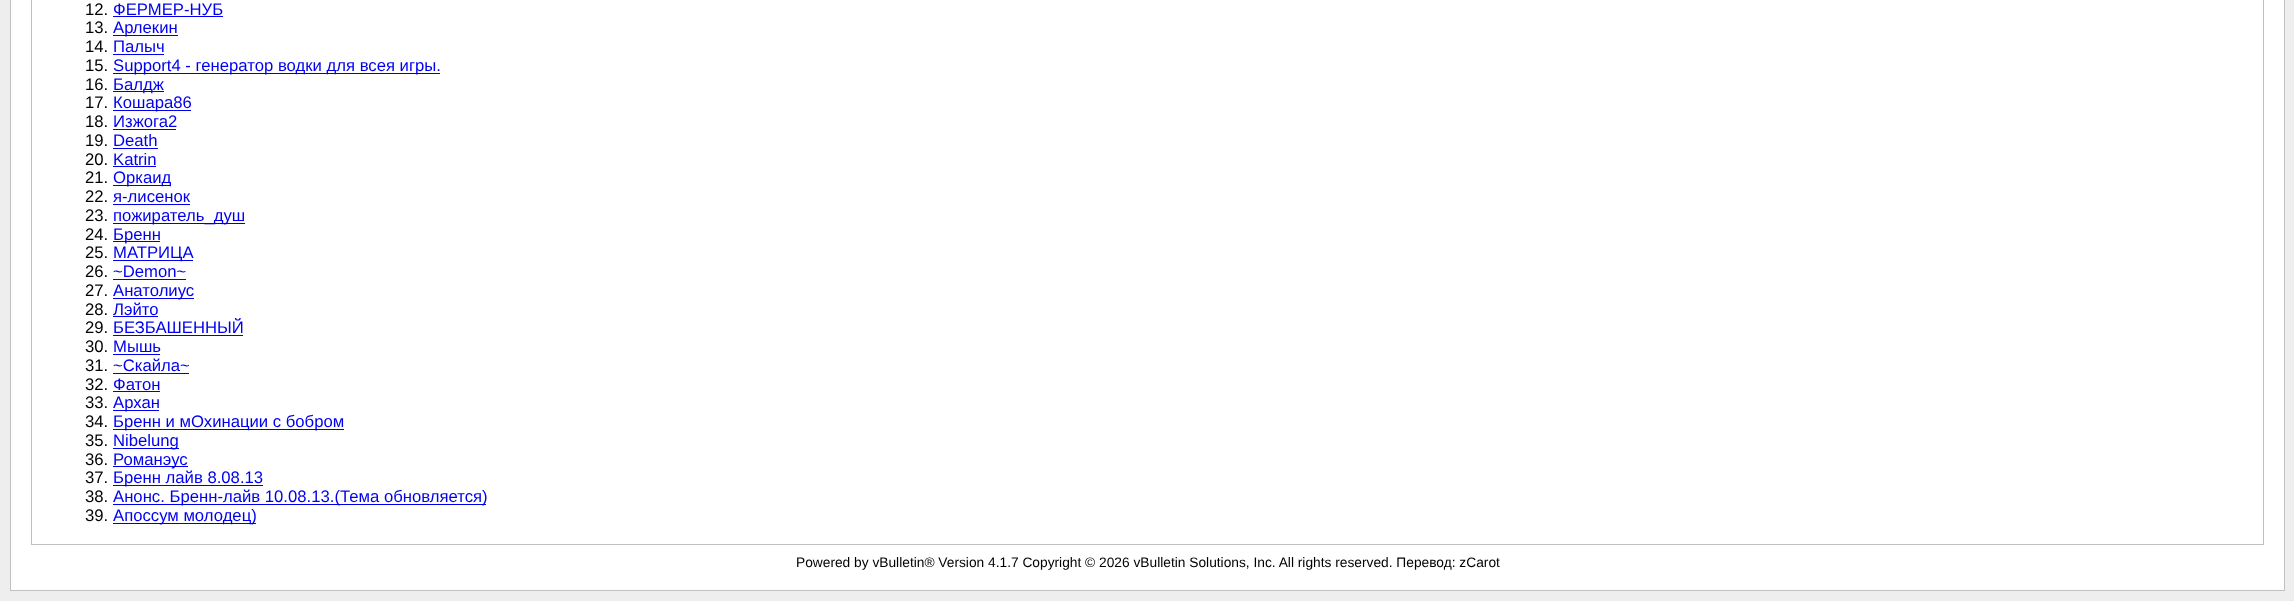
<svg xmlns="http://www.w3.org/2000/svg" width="2294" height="601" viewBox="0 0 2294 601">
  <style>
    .t1 { font: 16.7px Liberation Sans; fill: #000; }
    .t2 { font: 16.7px Liberation Sans; fill: #00e; }
    .t3 { font: 13.75px Liberation Sans; fill: #000; }
  </style>
  <rect width="100%" height="100%" fill="#eee"/>
  <rect x="10.5" y="-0.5" width="2274" height="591" fill="#fff" stroke="#c0c0c0"/>
  <rect x="31.5" y="-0.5" width="2232" height="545" fill="none" stroke="#c0c0c0"/>
  <text x="85" y="15" class="t1">12.</text>
  <text x="113" y="15" class="t2">ФЕРМЕР-НУБ</text>
  <rect x="113" y="16" width="110" height="1" fill="#00e"/>
  <text x="85" y="33" class="t1">13.</text>
  <rect x="113" y="35" width="65" height="1" fill="#00e"/>
  <text x="113" y="33" class="t2">Арлекин</text>
  <text x="85" y="52" class="t1">14.</text>
  <text x="113" y="52" class="t2">Палыч</text>
  <rect x="113" y="54" width="51" height="1" fill="#00e"/>
  <text x="85" y="71" class="t1">15.</text>
  <rect x="113" y="73" width="327" height="1" fill="#00e"/>
  <text x="113" y="71" class="t2">Support4 - генератор водки для всея игры.</text>
  <text x="85" y="90" class="t1">16.</text>
  <rect x="113" y="91" width="51" height="1" fill="#00e"/>
  <text x="113" y="90" class="t2">Балдж</text>
  <text x="85" y="108" class="t1">17.</text>
  <rect x="113" y="110" width="78" height="1" fill="#00e"/>
  <text x="113" y="108" class="t2">Кошара86</text>
  <text x="85" y="127" class="t1">18.</text>
  <text x="113" y="127" class="t2">Изжога2</text>
  <rect x="113" y="129" width="63" height="1" fill="#00e"/>
  <text x="85" y="146" class="t1">19.</text>
  <text x="113" y="146" class="t2">Death</text>
  <rect x="113" y="148" width="45" height="1" fill="#00e"/>
  <text x="85" y="165" class="t1">20.</text>
  <text x="113" y="165" class="t2">Katrin</text>
  <rect x="113" y="166" width="43" height="1" fill="#00e"/>
  <text x="85" y="183" class="t1">21.</text>
  <rect x="113" y="185" width="58" height="1" fill="#00e"/>
  <text x="113" y="183" class="t2">Оркаид</text>
  <text x="85" y="202" class="t1">22.</text>
  <text x="113" y="202" class="t2">я-лисенок</text>
  <rect x="113" y="204" width="77" height="1" fill="#00e"/>
  <text x="85" y="221" class="t1">23.</text>
  <rect x="113" y="223" width="132" height="1" fill="#00e"/>
  <text x="113" y="221" class="t2">пожиратель_душ</text>
  <text x="85" y="240" class="t1">24.</text>
  <rect x="113" y="241" width="47" height="1" fill="#00e"/>
  <text x="113" y="240" class="t2">Бренн</text>
  <text x="85" y="258" class="t1">25.</text>
  <rect x="113" y="260" width="80" height="1" fill="#00e"/>
  <text x="113" y="258" class="t2">МАТРИЦА</text>
  <text x="85" y="277" class="t1">26.</text>
  <text x="113" y="277" class="t2">~Demon~</text>
  <rect x="113" y="279" width="73" height="1" fill="#00e"/>
  <text x="85" y="296" class="t1">27.</text>
  <rect x="113" y="298" width="81" height="1" fill="#00e"/>
  <text x="113" y="296" class="t2">Анатолиус</text>
  <text x="85" y="315" class="t1">28.</text>
  <text x="113" y="315" class="t2">Лэйто</text>
  <rect x="113" y="316" width="45" height="1" fill="#00e"/>
  <text x="85" y="333" class="t1">29.</text>
  <text x="113" y="333" class="t2">БЕЗБАШЕННЫЙ</text>
  <rect x="113" y="335" width="130" height="1" fill="#00e"/>
  <text x="85" y="352" class="t1">30.</text>
  <text x="113" y="352" class="t2">Мышь</text>
  <rect x="113" y="354" width="47" height="1" fill="#00e"/>
  <text x="85" y="371" class="t1">31.</text>
  <text x="113" y="371" class="t2">~Скайла~</text>
  <rect x="113" y="373" width="76" height="1" fill="#00e"/>
  <text x="85" y="390" class="t1">32.</text>
  <text x="113" y="390" class="t2">Фатон</text>
  <rect x="113" y="391" width="47" height="1" fill="#00e"/>
  <text x="85" y="408" class="t1">33.</text>
  <rect x="113" y="410" width="46" height="1" fill="#00e"/>
  <text x="113" y="408" class="t2">Архан</text>
  <text x="85" y="427" class="t1">34.</text>
  <rect x="113" y="429" width="231" height="1" fill="#00e"/>
  <text x="113" y="427" class="t2">Бренн и мОхинации с бобром</text>
  <text x="85" y="446" class="t1">35.</text>
  <rect x="113" y="448" width="66" height="1" fill="#00e"/>
  <text x="113" y="446" class="t2">Nibelung</text>
  <text x="85" y="465" class="t1">36.</text>
  <rect x="113" y="466" width="75" height="1" fill="#00e"/>
  <text x="113" y="465" class="t2">Романэус</text>
  <text x="85" y="483" class="t1">37.</text>
  <rect x="113" y="485" width="150" height="1" fill="#00e"/>
  <text x="113" y="483" class="t2">Бренн лайв 8.08.13</text>
  <text x="85" y="502" class="t1">38.</text>
  <rect x="113" y="504" width="373" height="1" fill="#00e"/>
  <text x="113" y="502" class="t2">Анонс. Бренн-лайв 10.08.13.(Тема обновляется)</text>
  <text x="85" y="521" class="t1">39.</text>
  <rect x="113" y="523" width="143" height="1" fill="#00e"/>
  <text x="113" y="521" class="t2">Апоссум молодец)</text>
  <text x="796" y="567" class="t3">Powered by vBulletin® Version 4.1.7 Copyright © 2026 vBulletin Solutions, Inc. All rights reserved. Перевод: zCarot</text>
</svg>
